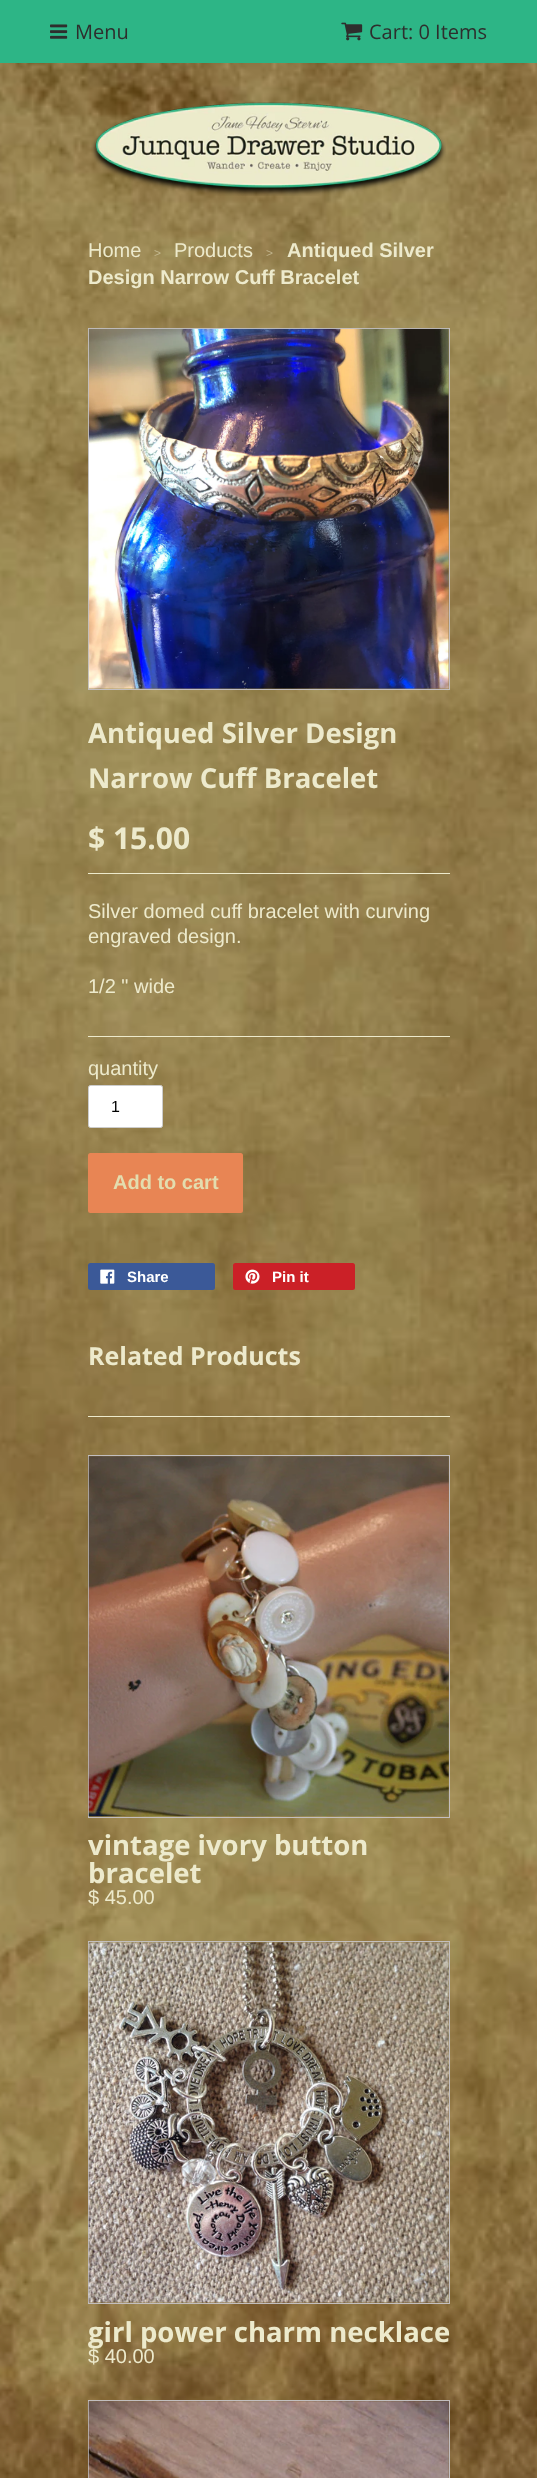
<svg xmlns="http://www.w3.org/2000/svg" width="537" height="2478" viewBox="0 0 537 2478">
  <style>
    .t1 { font: 20px Open Sans; fill: #2e2e2d; }
    .t2 { font: 20px Liberation Sans; fill: #edeacc; }
    .t3 { font: 12px Liberation Sans; fill: #c4b990; }
    .t4 { font: 12px Liberation Sans; fill: #c0b38c; }
    .t5 { font: bold 20px Liberation Sans; fill: #edeacc; }
    .t6 { font: bold 27.5px Open Sans; fill: #edeacc; }
    .t7 { font: bold 30px Open Sans; fill: #edeacc; }
    .t8 { font: 16px Liberation Sans; fill: #000; }
    .t9 { font: bold 20px Liberation Sans; fill: #e3ddaf; }
    .t10 { font: bold 15px Liberation Sans; fill: #fff; }
    .t11 { font: bold 25px Open Sans; fill: #edeacc; }
  </style>
  <rect width="100%" height="100%" fill="#fff"/>
  <image x="0" y="63" width="537" height="2415" href="images/1.png"/>
  <rect x="0" y="0" width="537" height="63" fill="#2db586"/>
  <image x="50" y="24" width="18" height="15" href="images/2.png"/>
  <text x="75" y="39" class="t1">Menu</text>
  <image x="341" y="22" width="22" height="19" href="images/3.png"/>
  <text x="369" y="39" class="t1">Cart: 0 Items</text>
  <image x="91" y="102" width="355" height="94" href="images/4.png"/>
  <text x="88" y="257" class="t2">Home</text>
  <text x="154" y="257" class="t3">&gt;</text>
  <text x="174" y="257" class="t2">Products</text>
  <text x="266" y="257" class="t4">&gt;</text>
  <text x="287" y="257" class="t5">Antiqued Silver</text>
  <text x="88" y="284" class="t5">Design Narrow Cuff Bracelet</text>
  <rect x="88.5" y="328.5" width="361" height="361" fill="none" stroke="#c2bebe"/>
  <image x="88" y="328" width="361" height="361" href="images/5.png"/>
  <text x="88" y="743" class="t6">Antiqued Silver Design</text>
  <text x="88" y="788" class="t6">Narrow Cuff Bracelet</text>
  <text x="88" y="849" class="t7">$ 15.00</text>
  <rect x="88" y="873" width="362" height="1" fill="#edeacc"/>
  <text x="88" y="918" class="t2">Silver domed cuff bracelet with curving</text>
  <text x="88" y="943" class="t2">engraved design.</text>
  <text x="88" y="993" class="t2">1/2 " wide</text>
  <rect x="88" y="1036" width="362" height="1" fill="#edeacc"/>
  <text x="88" y="1075" class="t2">quantity</text>
  <rect x="88.5" y="1085.5" width="74" height="42" rx="2" fill="#fff" stroke="#ccc"/>
  <text x="111" y="1112" class="t8">1</text>
  <rect x="88" y="1153" width="155" height="60" rx="2.5" fill="#e88554"/>
  <text x="113" y="1189" class="t9">Add to cart</text>
  <rect x="88" y="1263" width="127" height="27" rx="2.5" fill="#3b5998"/>
  <image x="100" y="1269" width="15" height="15" href="images/6.png"/>
  <text x="127" y="1282" class="t10">Share</text>
  <rect x="233" y="1263" width="122" height="27" rx="2.5" fill="#cb2027"/>
  <image x="245" y="1269" width="15" height="15" href="images/7.png"/>
  <text x="272" y="1282" class="t10">Pin it</text>
  <rect x="88" y="1416" width="362" height="1" fill="#edeacc"/>
  <text x="88" y="1365" class="t11">Related Products</text>
  <rect x="88.5" y="1455.5" width="361" height="362" fill="none" stroke="#c2bebe"/>
  <image x="88" y="1456" width="361" height="361" href="images/8.png"/>
  <text x="88" y="1855" class="t6">vintage ivory button</text>
  <text x="88" y="1883" class="t6">bracelet</text>
  <text x="88" y="1904" class="t2">$ 45.00</text>
  <rect x="88.5" y="1941.5" width="361" height="362" fill="none" stroke="#c2bebe"/>
  <image x="88" y="1942" width="361" height="361" href="images/9.png"/>
  <text x="88" y="2342" class="t6">girl power charm necklace</text>
  <text x="88" y="2363" class="t2">$ 40.00</text>
  <rect x="88.5" y="2400.5" width="361" height="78" fill="none" stroke="#c2bebe"/>
  <image x="88" y="2401" width="361" height="77" href="images/10.png"/>
</svg>
